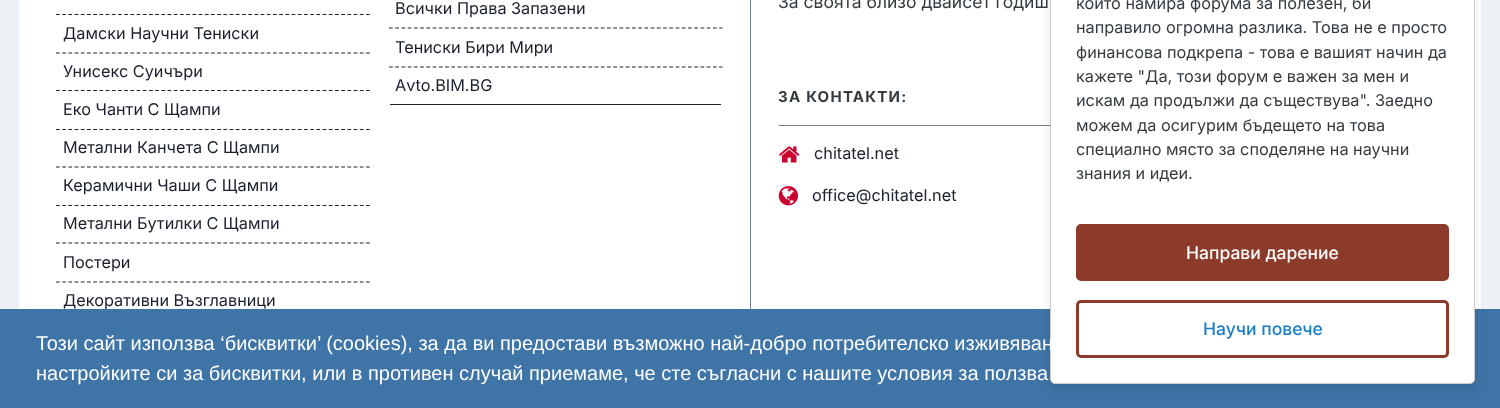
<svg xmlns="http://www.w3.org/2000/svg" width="1500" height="408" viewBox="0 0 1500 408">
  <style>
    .t1 { font: 16.25px Inter; fill: #1a202c; }
    .t2 { font: 17.5px Inter; fill: #353c41; }
    .t3 { font: bold 15px Inter; letter-spacing: 1.25px; fill: #353c41; }
    .t4 { font: 16.25px Inter; fill: #353c41; }
    .t5 { font: 500 17.5px Inter; fill: #fff; }
    .t6 { font: 500 17.5px Inter; fill: #177ec9; }
    .t7 { font: 20px Liberation Sans; fill: #fff; }
  </style>
  <rect width="100%" height="100%" fill="#edf0f4"/>
  <rect x="19" y="0" width="1462" height="309" fill="#fff"/>
  <path d="M56 14.5H370" fill="none" stroke="#222" stroke-width="1.2" stroke-dasharray="3.75 2.45"/>
  <path d="M56 53H370" fill="none" stroke="#222" stroke-width="1.2" stroke-dasharray="3.75 2.45"/>
  <text x="63" y="39" class="t1">Дамски Научни Тениски</text>
  <path d="M56 90.5H370" fill="none" stroke="#222" stroke-width="1.2" stroke-dasharray="3.75 2.45"/>
  <text x="63" y="77" class="t1">Унисекс Суичъри</text>
  <path d="M56 129.5H370" fill="none" stroke="#222" stroke-width="1.2" stroke-dasharray="3.75 2.45"/>
  <text x="63" y="115" class="t1">Еко Чанти С Щампи</text>
  <path d="M56 167H370" fill="none" stroke="#222" stroke-width="1.2" stroke-dasharray="3.75 2.45"/>
  <text x="63" y="153" class="t1">Метални Канчета С Щампи</text>
  <path d="M56 205.5H370" fill="none" stroke="#222" stroke-width="1.2" stroke-dasharray="3.75 2.45"/>
  <text x="63" y="191" class="t1">Керамични Чаши С Щампи</text>
  <path d="M56 243H370" fill="none" stroke="#222" stroke-width="1.2" stroke-dasharray="3.75 2.45"/>
  <text x="63" y="229" class="t1">Метални Бутилки С Щампи</text>
  <path d="M56 282H370" fill="none" stroke="#222" stroke-width="1.2" stroke-dasharray="3.75 2.45"/>
  <text x="63" y="268" class="t1">Постери</text>
  <text x="63" y="306" class="t1">Декоративни Възглавници</text>
  <path d="M389 28H722.5" fill="none" stroke="#222" stroke-width="1.2" stroke-dasharray="3.75 2.48"/>
  <text x="395" y="14" class="t1">Всички Права Запазени</text>
  <path d="M389 67H722.5" fill="none" stroke="#222" stroke-width="1.2" stroke-dasharray="3.75 2.48"/>
  <text x="395" y="53" class="t1">Тениски Бири Мири</text>
  <rect x="390" y="104" width="331" height="1" fill="#222"/>
  <text x="395" y="91" class="t1">Avto.BIM.BG</text>
  <rect x="750" y="0" width="1" height="309" fill="#718096"/>
  <text x="778" y="8" class="t2">За своята близо двайсет годиш</text>
  <rect x="779" y="125" width="271" height="1" fill="#718096"/>
  <text x="778" y="102" class="t3">ЗА КОНТАКТИ:</text>
  <image x="779" y="146" width="21" height="17" href="images/1.png"/>
  <text x="814" y="159" class="t1">chitatel.net</text>
  <image x="778" y="186" width="20" height="20" href="images/2.png"/>
  <text x="812" y="201" class="t1">office@chitatel.net</text>
  <rect x="0" y="309" width="1500" height="99" fill="#3e74a6"/>
  <rect x="1050" y="-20" width="425" height="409" rx="5" fill="#0000001a" filter="blur(5px)"/>
  <rect x="1050.5" y="-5.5" width="424" height="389" rx="4.5" fill="#fff" stroke="#ccc"/>
  <text x="1076" y="9" class="t4">който намира форума за полезен, би</text>
  <text x="1076" y="33" class="t4">направило огромна разлика. Това не е просто</text>
  <text x="1076" y="58" class="t4">финансова подкрепа - това е вашият начин да</text>
  <text x="1076" y="82" class="t4">кажете "Да, този форум е важен за мен и</text>
  <text x="1076" y="106" class="t4">искам да продължи да съществува". Заедно</text>
  <text x="1076" y="131" class="t4">можем да осигурим бъдещето на това</text>
  <text x="1076" y="155" class="t4">специално място за споделяне на научни</text>
  <text x="1076" y="179" class="t4">знания и идеи.</text>
  <rect x="1077.5" y="225.5" width="370" height="54" rx="3.5" fill="#8c3b2a" stroke="#8c3b2a" stroke-width="3"/>
  <text x="1186" y="259" class="t5">Направи дарение</text>
  <rect x="1077.5" y="301.5" width="370" height="55" rx="3.5" fill="none" stroke="#8c3b2a" stroke-width="3"/>
  <text x="1203" y="335" class="t6">Научи повече</text>
  <text x="36" y="350" class="t7">Този сайт използва ‘бисквитки’ (cookies), за да ви предостави възможно най-добро потребителско изживяван</text>
  <text x="36" y="380" class="t7">настройките си за бисквитки, или в противен случай приемаме, че сте съгласни с нашите условия за ползва</text>
</svg>
